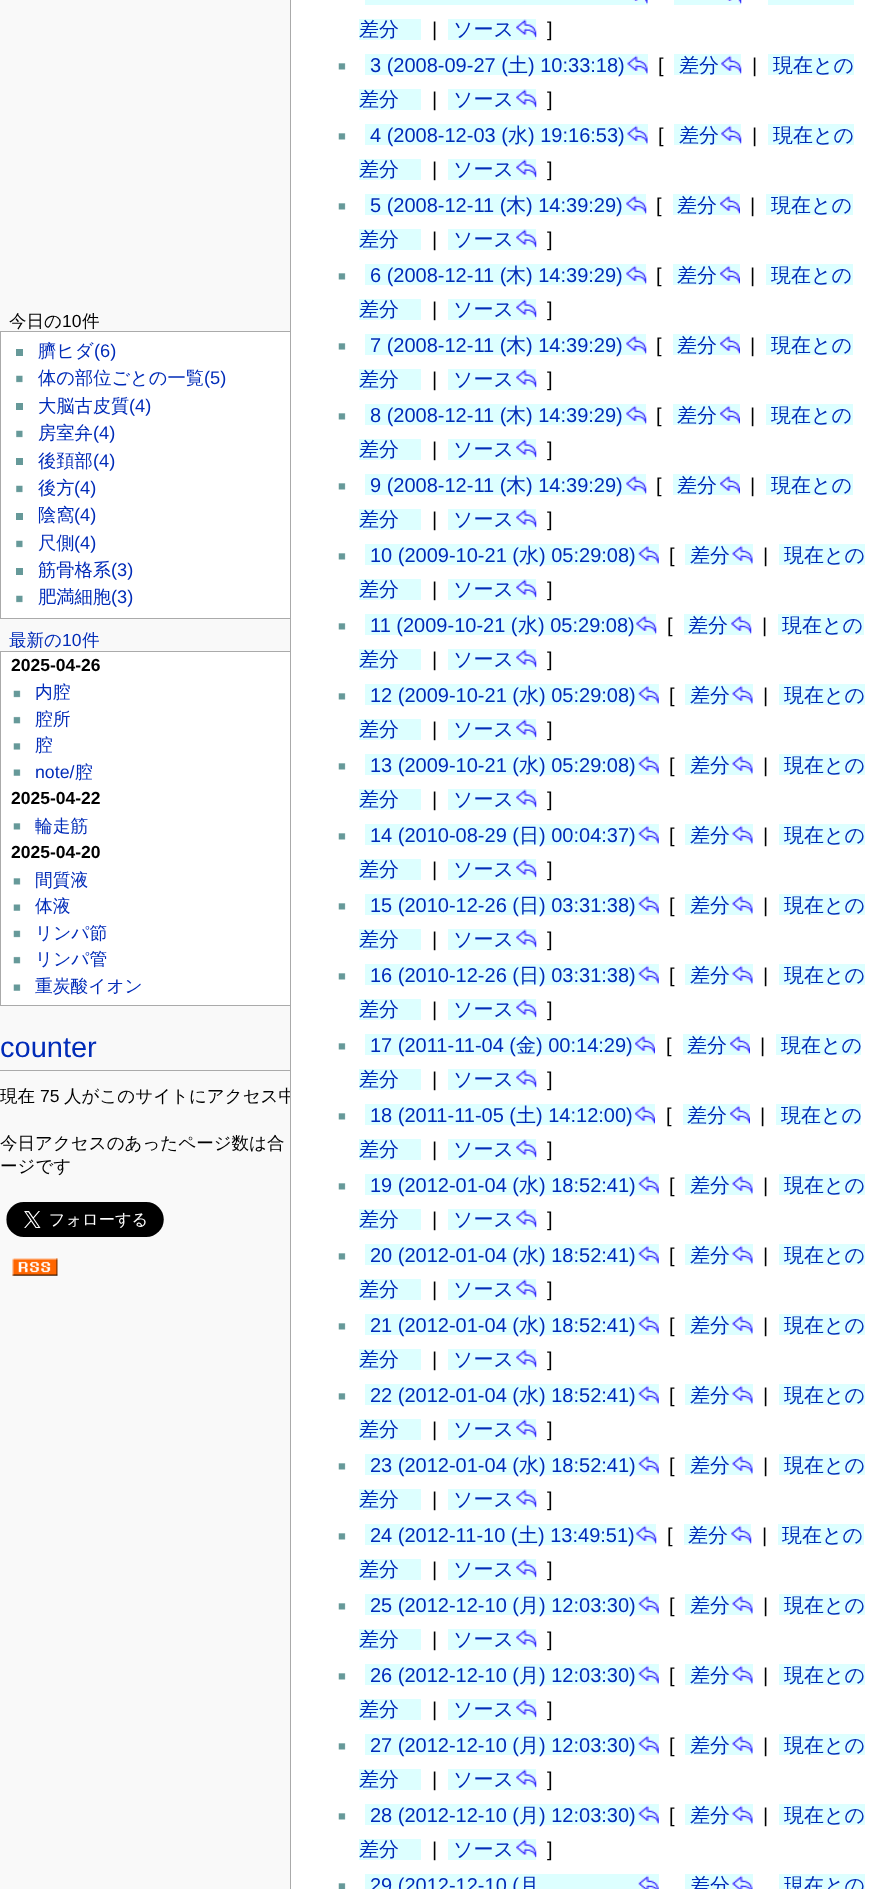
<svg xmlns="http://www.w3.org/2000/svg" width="882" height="1889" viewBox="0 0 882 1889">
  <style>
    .t1 { font: 500 17.5px WenQuanYi Zen Hei; fill: #000; }
    .t2 { font: 17.5px Liberation Sans; fill: #000; }
    .t3 { font: 500 18.25px WenQuanYi Zen Hei; fill: #002bb8; }
    .t4 { font: 18.25px Liberation Sans; fill: #002bb8; }
    .t5 { font: 500 17.5px WenQuanYi Zen Hei; fill: #002bb8; }
    .t6 { font: 17.5px Liberation Sans; fill: #002bb8; }
    .t7 { font: bold 17.5px Liberation Sans; fill: #000; }
    .t8 { font: 500 17.75px WenQuanYi Zen Hei; fill: #002bb8; }
    .t9 { font: 17.75px Liberation Sans; fill: #002bb8; }
    .t10 { font: 29px Liberation Sans; fill: #002bb8; }
    .t11 { font: 500 20px WenQuanYi Zen Hei; fill: #002bb8; }
    .t12 { font: 20px Liberation Sans; fill: #000; }
    .t13 { font: 20px Liberation Sans; fill: #002bb8; }
  </style>
  <rect width="100%" height="100%" fill="#f9f9f9"/>
  <text x="9" y="327" class="t1">今日の</text>
  <text x="62" y="327" class="t2">10</text>
  <text x="82" y="327" class="t1">件</text>
  <rect x="1" y="332" width="289" height="286" fill="#fff"/>
  <rect x="0.5" y="331.5" width="374" height="287" fill="none" stroke="#aaa"/>
  <rect x="16" y="349" width="7" height="7" fill="#699"/>
  <text x="38" y="357" class="t3">臍ヒダ</text>
  <text x="94" y="357" class="t4">(6)</text>
  <image x="16" y="375" width="7" height="8" href="images/1.png"/>
  <text x="38" y="384" class="t3">体の部位ごとの一覧</text>
  <text x="204" y="384" class="t4">(5)</text>
  <rect x="16" y="403" width="7" height="7" fill="#699"/>
  <text x="38" y="412" class="t3">大脳古皮質</text>
  <text x="129" y="412" class="t4">(4)</text>
  <image x="16" y="430" width="7" height="8" href="images/1.png"/>
  <text x="38" y="439" class="t3">房室弁</text>
  <text x="93" y="439" class="t4">(4)</text>
  <rect x="16" y="458" width="7" height="7" fill="#699"/>
  <text x="38" y="467" class="t3">後頚部</text>
  <text x="93" y="467" class="t4">(4)</text>
  <image x="16" y="485" width="7" height="8" href="images/1.png"/>
  <text x="38" y="494" class="t3">後方</text>
  <text x="74" y="494" class="t4">(4)</text>
  <rect x="16" y="513" width="7" height="7" fill="#699"/>
  <text x="38" y="521" class="t3">陰窩</text>
  <text x="74" y="521" class="t4">(4)</text>
  <image x="16" y="540" width="7" height="8" href="images/1.png"/>
  <text x="38" y="549" class="t3">尺側</text>
  <text x="74" y="549" class="t4">(4)</text>
  <rect x="16" y="568" width="7" height="7" fill="#699"/>
  <text x="38" y="576" class="t3">筋骨格系</text>
  <text x="111" y="576" class="t4">(3)</text>
  <image x="16" y="595" width="7" height="8" href="images/1.png"/>
  <text x="38" y="603" class="t3">肥満細胞</text>
  <text x="111" y="603" class="t4">(3)</text>
  <text x="9" y="646" class="t5">最新の</text>
  <text x="62" y="646" class="t6">10</text>
  <text x="82" y="646" class="t5">件</text>
  <rect x="1" y="652" width="289" height="353" fill="#fff"/>
  <rect x="0.5" y="651.5" width="374" height="354" fill="none" stroke="#aaa"/>
  <text x="11" y="671" class="t7">2025-04-26</text>
  <image x="13" y="690" width="8" height="8" href="images/2.png"/>
  <text x="35" y="698" class="t8">内腔</text>
  <image x="13" y="716" width="8" height="8" href="images/3.png"/>
  <text x="35" y="725" class="t8">腔所</text>
  <image x="13" y="743" width="8" height="7" href="images/4.png"/>
  <text x="35" y="751" class="t8">腔</text>
  <image x="13" y="769" width="8" height="7" href="images/5.png"/>
  <text x="35" y="778" class="t9">note/</text>
  <text x="75" y="778" class="t8">腔</text>
  <text x="11" y="804" class="t7">2025-04-22</text>
  <image x="13" y="823" width="8" height="7" href="images/6.png"/>
  <text x="35" y="832" class="t8">輪走筋</text>
  <text x="11" y="858" class="t7">2025-04-20</text>
  <image x="13" y="878" width="8" height="7" href="images/6.png"/>
  <text x="35" y="886" class="t8">間質液</text>
  <image x="13" y="904" width="8" height="7" href="images/5.png"/>
  <text x="35" y="912" class="t8">体液</text>
  <image x="13" y="930" width="8" height="8" href="images/2.png"/>
  <text x="35" y="939" class="t8">リンパ節</text>
  <image x="13" y="956" width="8" height="8" href="images/3.png"/>
  <text x="35" y="965" class="t8">リンパ管</text>
  <image x="13" y="984" width="8" height="7" href="images/5.png"/>
  <text x="35" y="992" class="t8">重炭酸イオン</text>
  <rect x="0" y="1070" width="290" height="1" fill="#aaa"/>
  <text x="0" y="1057" class="t10">counter</text>
  <text x="0" y="1102" class="t1">現在</text>
  <text x="40" y="1102" class="t2">75</text>
  <text x="64" y="1102" class="t1">人がこのサイトにアクセス中</text>
  <text x="0" y="1149" class="t1">今日アクセスのあったページ数は合</text>
  <text x="0" y="1172" class="t1">ージです</text>
  <image x="6" y="1202" width="158" height="35" href="images/7.png"/>
  <image x="12" y="1258" width="46" height="18" href="images/8.png"/>
  <rect x="291" y="0" width="591" height="1889" fill="#fff"/>
  <rect x="290" y="0" width="1" height="1889" fill="#aaa"/>
  <rect x="365" y="0" width="283" height="5" fill="#dff"/>
  <image x="633" y="0" width="15" height="4" href="images/9.png"/>
  <rect x="674" y="0" width="67" height="5" fill="#dff"/>
  <image x="727" y="0" width="15" height="4" href="images/10.png"/>
  <rect x="359" y="19" width="62" height="21" fill="#dff"/>
  <text x="359" y="36" class="t11">差分</text>
  <rect x="768" y="0" width="86" height="5" fill="#dff"/>
  <text x="432" y="36" class="t12">|</text>
  <rect x="448" y="19" width="88" height="21" fill="#dff"/>
  <text x="453" y="36" class="t11">ソース</text>
  <image x="516" y="19" width="21" height="19" href="images/11.png"/>
  <text x="547" y="36" class="t12">]</text>
  <image x="338" y="63" width="8" height="7" href="images/6.png"/>
  <rect x="365" y="54" width="283" height="21" fill="#dff"/>
  <text x="370" y="72" class="t13">3 (2008-09-27 (</text>
  <text x="508" y="72" class="t11">土</text>
  <text x="528" y="72" class="t13">) 10:33:18)</text>
  <image x="627" y="55" width="21" height="19" href="images/12.png"/>
  <text x="658" y="72" class="t12">[</text>
  <rect x="674" y="54" width="67" height="21" fill="#dff"/>
  <text x="679" y="72" class="t11">差分</text>
  <image x="721" y="55" width="21" height="19" href="images/13.png"/>
  <text x="752" y="72" class="t12">|</text>
  <rect x="768" y="54" width="86" height="21" fill="#dff"/>
  <text x="773" y="72" class="t11">現在との</text>
  <rect x="359" y="89" width="62" height="21" fill="#dff"/>
  <text x="359" y="106" class="t11">差分</text>
  <text x="432" y="106" class="t12">|</text>
  <rect x="448" y="89" width="88" height="21" fill="#dff"/>
  <text x="453" y="106" class="t11">ソース</text>
  <image x="516" y="89" width="21" height="19" href="images/11.png"/>
  <text x="547" y="106" class="t12">]</text>
  <image x="338" y="133" width="8" height="7" href="images/6.png"/>
  <rect x="365" y="124" width="283" height="21" fill="#dff"/>
  <text x="370" y="142" class="t13">4 (2008-12-03 (</text>
  <text x="508" y="142" class="t11">水</text>
  <text x="528" y="142" class="t13">) 19:16:53)</text>
  <image x="627" y="125" width="21" height="19" href="images/12.png"/>
  <text x="658" y="142" class="t12">[</text>
  <rect x="674" y="124" width="67" height="21" fill="#dff"/>
  <text x="679" y="142" class="t11">差分</text>
  <image x="721" y="125" width="21" height="19" href="images/13.png"/>
  <text x="752" y="142" class="t12">|</text>
  <rect x="768" y="124" width="86" height="21" fill="#dff"/>
  <text x="773" y="142" class="t11">現在との</text>
  <rect x="359" y="159" width="62" height="21" fill="#dff"/>
  <text x="359" y="176" class="t11">差分</text>
  <text x="432" y="176" class="t12">|</text>
  <rect x="448" y="159" width="88" height="21" fill="#dff"/>
  <text x="453" y="176" class="t11">ソース</text>
  <image x="516" y="159" width="21" height="19" href="images/11.png"/>
  <text x="547" y="176" class="t12">]</text>
  <image x="338" y="203" width="8" height="7" href="images/6.png"/>
  <rect x="365" y="194" width="281" height="21" fill="#dff"/>
  <text x="370" y="212" class="t13">5 (2008-12-11 (</text>
  <text x="506" y="212" class="t11">木</text>
  <text x="526" y="212" class="t13">) 14:39:29)</text>
  <image x="626" y="195" width="21" height="19" href="images/14.png"/>
  <text x="656" y="212" class="t12">[</text>
  <rect x="673" y="194" width="67" height="21" fill="#dff"/>
  <text x="677" y="212" class="t11">差分</text>
  <image x="720" y="195" width="20" height="19" href="images/15.png"/>
  <text x="750" y="212" class="t12">|</text>
  <rect x="766" y="194" width="87" height="21" fill="#dff"/>
  <text x="771" y="212" class="t11">現在との</text>
  <rect x="359" y="229" width="62" height="21" fill="#dff"/>
  <text x="359" y="246" class="t11">差分</text>
  <text x="432" y="246" class="t12">|</text>
  <rect x="448" y="229" width="88" height="21" fill="#dff"/>
  <text x="453" y="246" class="t11">ソース</text>
  <image x="516" y="229" width="21" height="19" href="images/11.png"/>
  <text x="547" y="246" class="t12">]</text>
  <image x="338" y="273" width="8" height="7" href="images/6.png"/>
  <rect x="365" y="264" width="281" height="21" fill="#dff"/>
  <text x="370" y="282" class="t13">6 (2008-12-11 (</text>
  <text x="506" y="282" class="t11">木</text>
  <text x="526" y="282" class="t13">) 14:39:29)</text>
  <image x="626" y="265" width="21" height="19" href="images/13.png"/>
  <text x="656" y="282" class="t12">[</text>
  <rect x="673" y="264" width="67" height="21" fill="#dff"/>
  <text x="677" y="282" class="t11">差分</text>
  <image x="720" y="265" width="20" height="19" href="images/16.png"/>
  <text x="750" y="282" class="t12">|</text>
  <rect x="766" y="264" width="87" height="21" fill="#dff"/>
  <text x="771" y="282" class="t11">現在との</text>
  <rect x="359" y="299" width="62" height="21" fill="#dff"/>
  <text x="359" y="316" class="t11">差分</text>
  <text x="432" y="316" class="t12">|</text>
  <rect x="448" y="299" width="88" height="21" fill="#dff"/>
  <text x="453" y="316" class="t11">ソース</text>
  <image x="516" y="299" width="21" height="19" href="images/11.png"/>
  <text x="547" y="316" class="t12">]</text>
  <image x="338" y="343" width="8" height="7" href="images/4.png"/>
  <rect x="365" y="334" width="281" height="21" fill="#dff"/>
  <text x="370" y="352" class="t13">7 (2008-12-11 (</text>
  <text x="506" y="352" class="t11">木</text>
  <text x="526" y="352" class="t13">) 14:39:29)</text>
  <image x="626" y="335" width="21" height="19" href="images/17.png"/>
  <text x="656" y="352" class="t12">[</text>
  <rect x="673" y="334" width="67" height="21" fill="#dff"/>
  <text x="677" y="352" class="t11">差分</text>
  <image x="720" y="335" width="20" height="19" href="images/18.png"/>
  <text x="750" y="352" class="t12">|</text>
  <rect x="766" y="334" width="87" height="21" fill="#dff"/>
  <text x="771" y="352" class="t11">現在との</text>
  <rect x="359" y="369" width="62" height="21" fill="#dff"/>
  <text x="359" y="386" class="t11">差分</text>
  <text x="432" y="386" class="t12">|</text>
  <rect x="448" y="369" width="88" height="21" fill="#dff"/>
  <text x="453" y="386" class="t11">ソース</text>
  <image x="516" y="369" width="21" height="19" href="images/11.png"/>
  <text x="547" y="386" class="t12">]</text>
  <image x="338" y="413" width="8" height="7" href="images/6.png"/>
  <rect x="365" y="404" width="281" height="21" fill="#dff"/>
  <text x="370" y="422" class="t13">8 (2008-12-11 (</text>
  <text x="506" y="422" class="t11">木</text>
  <text x="526" y="422" class="t13">) 14:39:29)</text>
  <image x="626" y="405" width="21" height="19" href="images/13.png"/>
  <text x="656" y="422" class="t12">[</text>
  <rect x="673" y="404" width="67" height="21" fill="#dff"/>
  <text x="677" y="422" class="t11">差分</text>
  <image x="720" y="405" width="20" height="19" href="images/16.png"/>
  <text x="750" y="422" class="t12">|</text>
  <rect x="766" y="404" width="87" height="21" fill="#dff"/>
  <text x="771" y="422" class="t11">現在との</text>
  <rect x="359" y="439" width="62" height="21" fill="#dff"/>
  <text x="359" y="456" class="t11">差分</text>
  <text x="432" y="456" class="t12">|</text>
  <rect x="448" y="439" width="88" height="21" fill="#dff"/>
  <text x="453" y="456" class="t11">ソース</text>
  <image x="516" y="439" width="21" height="19" href="images/11.png"/>
  <text x="547" y="456" class="t12">]</text>
  <image x="338" y="483" width="8" height="7" href="images/6.png"/>
  <rect x="365" y="474" width="281" height="21" fill="#dff"/>
  <text x="370" y="492" class="t13">9 (2008-12-11 (</text>
  <text x="506" y="492" class="t11">木</text>
  <text x="526" y="492" class="t13">) 14:39:29)</text>
  <image x="626" y="475" width="21" height="19" href="images/13.png"/>
  <text x="656" y="492" class="t12">[</text>
  <rect x="673" y="474" width="67" height="21" fill="#dff"/>
  <text x="677" y="492" class="t11">差分</text>
  <image x="720" y="475" width="20" height="19" href="images/16.png"/>
  <text x="750" y="492" class="t12">|</text>
  <rect x="766" y="474" width="87" height="21" fill="#dff"/>
  <text x="771" y="492" class="t11">現在との</text>
  <rect x="359" y="509" width="62" height="21" fill="#dff"/>
  <text x="359" y="526" class="t11">差分</text>
  <text x="432" y="526" class="t12">|</text>
  <rect x="448" y="509" width="88" height="21" fill="#dff"/>
  <text x="453" y="526" class="t11">ソース</text>
  <image x="516" y="509" width="21" height="19" href="images/11.png"/>
  <text x="547" y="526" class="t12">]</text>
  <image x="338" y="553" width="8" height="7" href="images/6.png"/>
  <rect x="365" y="544" width="294" height="21" fill="#dff"/>
  <text x="370" y="562" class="t13">10 (2009-10-21 (</text>
  <text x="519" y="562" class="t11">水</text>
  <text x="539" y="562" class="t13">) 05:29:08)</text>
  <image x="638" y="545" width="21" height="19" href="images/19.png"/>
  <text x="669" y="562" class="t12">[</text>
  <rect x="685" y="544" width="68" height="21" fill="#dff"/>
  <text x="690" y="562" class="t11">差分</text>
  <image x="732" y="545" width="21" height="19" href="images/12.png"/>
  <text x="763" y="562" class="t12">|</text>
  <rect x="779" y="544" width="86" height="21" fill="#dff"/>
  <text x="784" y="562" class="t11">現在との</text>
  <rect x="359" y="579" width="62" height="21" fill="#dff"/>
  <text x="359" y="596" class="t11">差分</text>
  <text x="432" y="596" class="t12">|</text>
  <rect x="448" y="579" width="88" height="21" fill="#dff"/>
  <text x="453" y="596" class="t11">ソース</text>
  <image x="516" y="579" width="21" height="19" href="images/11.png"/>
  <text x="547" y="596" class="t12">]</text>
  <image x="338" y="623" width="8" height="7" href="images/6.png"/>
  <rect x="365" y="614" width="291" height="21" fill="#dff"/>
  <text x="370" y="632" class="t13">11 (2009-10-21 (</text>
  <text x="518" y="632" class="t11">水</text>
  <text x="538" y="632" class="t13">) 05:29:08)</text>
  <image x="636" y="615" width="21" height="19" href="images/13.png"/>
  <text x="667" y="632" class="t12">[</text>
  <rect x="684" y="614" width="67" height="21" fill="#dff"/>
  <text x="688" y="632" class="t11">差分</text>
  <image x="731" y="615" width="21" height="19" href="images/13.png"/>
  <text x="762" y="632" class="t12">|</text>
  <rect x="778" y="614" width="86" height="21" fill="#dff"/>
  <text x="782" y="632" class="t11">現在との</text>
  <rect x="359" y="649" width="62" height="21" fill="#dff"/>
  <text x="359" y="666" class="t11">差分</text>
  <text x="432" y="666" class="t12">|</text>
  <rect x="448" y="649" width="88" height="21" fill="#dff"/>
  <text x="453" y="666" class="t11">ソース</text>
  <image x="516" y="649" width="21" height="19" href="images/11.png"/>
  <text x="547" y="666" class="t12">]</text>
  <image x="338" y="693" width="8" height="7" href="images/6.png"/>
  <rect x="365" y="684" width="294" height="21" fill="#dff"/>
  <text x="370" y="702" class="t13">12 (2009-10-21 (</text>
  <text x="519" y="702" class="t11">水</text>
  <text x="539" y="702" class="t13">) 05:29:08)</text>
  <image x="638" y="685" width="21" height="19" href="images/19.png"/>
  <text x="669" y="702" class="t12">[</text>
  <rect x="685" y="684" width="68" height="21" fill="#dff"/>
  <text x="690" y="702" class="t11">差分</text>
  <image x="732" y="685" width="21" height="19" href="images/12.png"/>
  <text x="763" y="702" class="t12">|</text>
  <rect x="779" y="684" width="86" height="21" fill="#dff"/>
  <text x="784" y="702" class="t11">現在との</text>
  <rect x="359" y="719" width="62" height="21" fill="#dff"/>
  <text x="359" y="736" class="t11">差分</text>
  <text x="432" y="736" class="t12">|</text>
  <rect x="448" y="719" width="88" height="21" fill="#dff"/>
  <text x="453" y="736" class="t11">ソース</text>
  <image x="516" y="719" width="21" height="19" href="images/11.png"/>
  <text x="547" y="736" class="t12">]</text>
  <image x="338" y="763" width="8" height="7" href="images/6.png"/>
  <rect x="365" y="754" width="294" height="21" fill="#dff"/>
  <text x="370" y="772" class="t13">13 (2009-10-21 (</text>
  <text x="519" y="772" class="t11">水</text>
  <text x="539" y="772" class="t13">) 05:29:08)</text>
  <image x="638" y="755" width="21" height="19" href="images/19.png"/>
  <text x="669" y="772" class="t12">[</text>
  <rect x="685" y="754" width="68" height="21" fill="#dff"/>
  <text x="690" y="772" class="t11">差分</text>
  <image x="732" y="755" width="21" height="19" href="images/12.png"/>
  <text x="763" y="772" class="t12">|</text>
  <rect x="779" y="754" width="86" height="21" fill="#dff"/>
  <text x="784" y="772" class="t11">現在との</text>
  <rect x="359" y="789" width="62" height="21" fill="#dff"/>
  <text x="359" y="806" class="t11">差分</text>
  <text x="432" y="806" class="t12">|</text>
  <rect x="448" y="789" width="88" height="21" fill="#dff"/>
  <text x="453" y="806" class="t11">ソース</text>
  <image x="516" y="789" width="21" height="19" href="images/11.png"/>
  <text x="547" y="806" class="t12">]</text>
  <image x="338" y="833" width="8" height="7" href="images/6.png"/>
  <rect x="365" y="824" width="294" height="21" fill="#dff"/>
  <text x="370" y="842" class="t13">14 (2010-08-29 (</text>
  <text x="519" y="842" class="t11">日</text>
  <text x="539" y="842" class="t13">) 00:04:37)</text>
  <image x="638" y="825" width="21" height="19" href="images/19.png"/>
  <text x="669" y="842" class="t12">[</text>
  <rect x="685" y="824" width="68" height="21" fill="#dff"/>
  <text x="690" y="842" class="t11">差分</text>
  <image x="732" y="825" width="21" height="19" href="images/12.png"/>
  <text x="763" y="842" class="t12">|</text>
  <rect x="779" y="824" width="86" height="21" fill="#dff"/>
  <text x="784" y="842" class="t11">現在との</text>
  <rect x="359" y="859" width="62" height="21" fill="#dff"/>
  <text x="359" y="876" class="t11">差分</text>
  <text x="432" y="876" class="t12">|</text>
  <rect x="448" y="859" width="88" height="21" fill="#dff"/>
  <text x="453" y="876" class="t11">ソース</text>
  <image x="516" y="859" width="21" height="19" href="images/11.png"/>
  <text x="547" y="876" class="t12">]</text>
  <image x="338" y="903" width="8" height="7" href="images/6.png"/>
  <rect x="365" y="894" width="294" height="21" fill="#dff"/>
  <text x="370" y="912" class="t13">15 (2010-12-26 (</text>
  <text x="519" y="912" class="t11">日</text>
  <text x="539" y="912" class="t13">) 03:31:38)</text>
  <image x="638" y="895" width="21" height="19" href="images/19.png"/>
  <text x="669" y="912" class="t12">[</text>
  <rect x="685" y="894" width="68" height="21" fill="#dff"/>
  <text x="690" y="912" class="t11">差分</text>
  <image x="732" y="895" width="21" height="19" href="images/12.png"/>
  <text x="763" y="912" class="t12">|</text>
  <rect x="779" y="894" width="86" height="21" fill="#dff"/>
  <text x="784" y="912" class="t11">現在との</text>
  <rect x="359" y="929" width="62" height="21" fill="#dff"/>
  <text x="359" y="946" class="t11">差分</text>
  <text x="432" y="946" class="t12">|</text>
  <rect x="448" y="929" width="88" height="21" fill="#dff"/>
  <text x="453" y="946" class="t11">ソース</text>
  <image x="516" y="929" width="21" height="19" href="images/11.png"/>
  <text x="547" y="946" class="t12">]</text>
  <image x="338" y="973" width="8" height="7" href="images/6.png"/>
  <rect x="365" y="964" width="294" height="21" fill="#dff"/>
  <text x="370" y="982" class="t13">16 (2010-12-26 (</text>
  <text x="519" y="982" class="t11">日</text>
  <text x="539" y="982" class="t13">) 03:31:38)</text>
  <image x="638" y="965" width="21" height="19" href="images/19.png"/>
  <text x="669" y="982" class="t12">[</text>
  <rect x="685" y="964" width="68" height="21" fill="#dff"/>
  <text x="690" y="982" class="t11">差分</text>
  <image x="732" y="965" width="21" height="19" href="images/12.png"/>
  <text x="763" y="982" class="t12">|</text>
  <rect x="779" y="964" width="86" height="21" fill="#dff"/>
  <text x="784" y="982" class="t11">現在との</text>
  <rect x="359" y="999" width="62" height="21" fill="#dff"/>
  <text x="359" y="1016" class="t11">差分</text>
  <text x="432" y="1016" class="t12">|</text>
  <rect x="448" y="999" width="88" height="21" fill="#dff"/>
  <text x="453" y="1016" class="t11">ソース</text>
  <image x="516" y="999" width="21" height="19" href="images/11.png"/>
  <text x="547" y="1016" class="t12">]</text>
  <image x="338" y="1043" width="8" height="7" href="images/6.png"/>
  <rect x="365" y="1034" width="290" height="21" fill="#dff"/>
  <text x="370" y="1052" class="t13">17 (2011-11-04 (</text>
  <text x="516" y="1052" class="t11">金</text>
  <text x="536" y="1052" class="t13">) 00:14:29)</text>
  <image x="635" y="1035" width="20" height="19" href="images/20.png"/>
  <text x="666" y="1052" class="t12">[</text>
  <rect x="683" y="1034" width="67" height="21" fill="#dff"/>
  <text x="687" y="1052" class="t11">差分</text>
  <image x="730" y="1035" width="20" height="19" href="images/16.png"/>
  <text x="760" y="1052" class="t12">|</text>
  <rect x="776" y="1034" width="85" height="21" fill="#dff"/>
  <text x="781" y="1052" class="t11">現在との</text>
  <rect x="359" y="1069" width="62" height="21" fill="#dff"/>
  <text x="359" y="1086" class="t11">差分</text>
  <text x="432" y="1086" class="t12">|</text>
  <rect x="448" y="1069" width="88" height="21" fill="#dff"/>
  <text x="453" y="1086" class="t11">ソース</text>
  <image x="516" y="1069" width="21" height="19" href="images/11.png"/>
  <text x="547" y="1086" class="t12">]</text>
  <image x="338" y="1113" width="8" height="7" href="images/6.png"/>
  <rect x="365" y="1104" width="290" height="21" fill="#dff"/>
  <text x="370" y="1122" class="t13">18 (2011-11-05 (</text>
  <text x="516" y="1122" class="t11">土</text>
  <text x="536" y="1122" class="t13">) 14:12:00)</text>
  <image x="635" y="1105" width="20" height="19" href="images/20.png"/>
  <text x="666" y="1122" class="t12">[</text>
  <rect x="683" y="1104" width="67" height="21" fill="#dff"/>
  <text x="687" y="1122" class="t11">差分</text>
  <image x="730" y="1105" width="20" height="19" href="images/16.png"/>
  <text x="760" y="1122" class="t12">|</text>
  <rect x="776" y="1104" width="85" height="21" fill="#dff"/>
  <text x="781" y="1122" class="t11">現在との</text>
  <rect x="359" y="1139" width="62" height="21" fill="#dff"/>
  <text x="359" y="1156" class="t11">差分</text>
  <text x="432" y="1156" class="t12">|</text>
  <rect x="448" y="1139" width="88" height="21" fill="#dff"/>
  <text x="453" y="1156" class="t11">ソース</text>
  <image x="516" y="1139" width="21" height="19" href="images/11.png"/>
  <text x="547" y="1156" class="t12">]</text>
  <image x="338" y="1183" width="8" height="7" href="images/6.png"/>
  <rect x="365" y="1174" width="294" height="21" fill="#dff"/>
  <text x="370" y="1192" class="t13">19 (2012-01-04 (</text>
  <text x="519" y="1192" class="t11">水</text>
  <text x="539" y="1192" class="t13">) 18:52:41)</text>
  <image x="638" y="1175" width="21" height="19" href="images/19.png"/>
  <text x="669" y="1192" class="t12">[</text>
  <rect x="685" y="1174" width="68" height="21" fill="#dff"/>
  <text x="690" y="1192" class="t11">差分</text>
  <image x="732" y="1175" width="21" height="19" href="images/12.png"/>
  <text x="763" y="1192" class="t12">|</text>
  <rect x="779" y="1174" width="86" height="21" fill="#dff"/>
  <text x="784" y="1192" class="t11">現在との</text>
  <rect x="359" y="1209" width="62" height="21" fill="#dff"/>
  <text x="359" y="1226" class="t11">差分</text>
  <text x="432" y="1226" class="t12">|</text>
  <rect x="448" y="1209" width="88" height="21" fill="#dff"/>
  <text x="453" y="1226" class="t11">ソース</text>
  <image x="516" y="1209" width="21" height="19" href="images/11.png"/>
  <text x="547" y="1226" class="t12">]</text>
  <image x="338" y="1253" width="8" height="7" href="images/6.png"/>
  <rect x="365" y="1244" width="294" height="21" fill="#dff"/>
  <text x="370" y="1262" class="t13">20 (2012-01-04 (</text>
  <text x="519" y="1262" class="t11">水</text>
  <text x="539" y="1262" class="t13">) 18:52:41)</text>
  <image x="638" y="1245" width="21" height="19" href="images/19.png"/>
  <text x="669" y="1262" class="t12">[</text>
  <rect x="685" y="1244" width="68" height="21" fill="#dff"/>
  <text x="690" y="1262" class="t11">差分</text>
  <image x="732" y="1245" width="21" height="19" href="images/12.png"/>
  <text x="763" y="1262" class="t12">|</text>
  <rect x="779" y="1244" width="86" height="21" fill="#dff"/>
  <text x="784" y="1262" class="t11">現在との</text>
  <rect x="359" y="1279" width="62" height="21" fill="#dff"/>
  <text x="359" y="1296" class="t11">差分</text>
  <text x="432" y="1296" class="t12">|</text>
  <rect x="448" y="1279" width="88" height="21" fill="#dff"/>
  <text x="453" y="1296" class="t11">ソース</text>
  <image x="516" y="1279" width="21" height="19" href="images/11.png"/>
  <text x="547" y="1296" class="t12">]</text>
  <image x="338" y="1323" width="8" height="7" href="images/6.png"/>
  <rect x="365" y="1314" width="294" height="21" fill="#dff"/>
  <text x="370" y="1332" class="t13">21 (2012-01-04 (</text>
  <text x="519" y="1332" class="t11">水</text>
  <text x="539" y="1332" class="t13">) 18:52:41)</text>
  <image x="638" y="1315" width="21" height="19" href="images/19.png"/>
  <text x="669" y="1332" class="t12">[</text>
  <rect x="685" y="1314" width="68" height="21" fill="#dff"/>
  <text x="690" y="1332" class="t11">差分</text>
  <image x="732" y="1315" width="21" height="19" href="images/12.png"/>
  <text x="763" y="1332" class="t12">|</text>
  <rect x="779" y="1314" width="86" height="21" fill="#dff"/>
  <text x="784" y="1332" class="t11">現在との</text>
  <rect x="359" y="1349" width="62" height="21" fill="#dff"/>
  <text x="359" y="1366" class="t11">差分</text>
  <text x="432" y="1366" class="t12">|</text>
  <rect x="448" y="1349" width="88" height="21" fill="#dff"/>
  <text x="453" y="1366" class="t11">ソース</text>
  <image x="516" y="1349" width="21" height="19" href="images/11.png"/>
  <text x="547" y="1366" class="t12">]</text>
  <image x="338" y="1393" width="8" height="7" href="images/6.png"/>
  <rect x="365" y="1384" width="294" height="21" fill="#dff"/>
  <text x="370" y="1402" class="t13">22 (2012-01-04 (</text>
  <text x="519" y="1402" class="t11">水</text>
  <text x="539" y="1402" class="t13">) 18:52:41)</text>
  <image x="638" y="1385" width="21" height="19" href="images/19.png"/>
  <text x="669" y="1402" class="t12">[</text>
  <rect x="685" y="1384" width="68" height="21" fill="#dff"/>
  <text x="690" y="1402" class="t11">差分</text>
  <image x="732" y="1385" width="21" height="19" href="images/12.png"/>
  <text x="763" y="1402" class="t12">|</text>
  <rect x="779" y="1384" width="86" height="21" fill="#dff"/>
  <text x="784" y="1402" class="t11">現在との</text>
  <rect x="359" y="1419" width="62" height="21" fill="#dff"/>
  <text x="359" y="1436" class="t11">差分</text>
  <text x="432" y="1436" class="t12">|</text>
  <rect x="448" y="1419" width="88" height="21" fill="#dff"/>
  <text x="453" y="1436" class="t11">ソース</text>
  <image x="516" y="1419" width="21" height="19" href="images/11.png"/>
  <text x="547" y="1436" class="t12">]</text>
  <image x="338" y="1463" width="8" height="7" href="images/6.png"/>
  <rect x="365" y="1454" width="294" height="21" fill="#dff"/>
  <text x="370" y="1472" class="t13">23 (2012-01-04 (</text>
  <text x="519" y="1472" class="t11">水</text>
  <text x="539" y="1472" class="t13">) 18:52:41)</text>
  <image x="638" y="1455" width="21" height="19" href="images/19.png"/>
  <text x="669" y="1472" class="t12">[</text>
  <rect x="685" y="1454" width="68" height="21" fill="#dff"/>
  <text x="690" y="1472" class="t11">差分</text>
  <image x="732" y="1455" width="21" height="19" href="images/12.png"/>
  <text x="763" y="1472" class="t12">|</text>
  <rect x="779" y="1454" width="86" height="21" fill="#dff"/>
  <text x="784" y="1472" class="t11">現在との</text>
  <rect x="359" y="1489" width="62" height="21" fill="#dff"/>
  <text x="359" y="1506" class="t11">差分</text>
  <text x="432" y="1506" class="t12">|</text>
  <rect x="448" y="1489" width="88" height="21" fill="#dff"/>
  <text x="453" y="1506" class="t11">ソース</text>
  <image x="516" y="1489" width="21" height="19" href="images/11.png"/>
  <text x="547" y="1506" class="t12">]</text>
  <image x="338" y="1533" width="8" height="7" href="images/6.png"/>
  <rect x="365" y="1524" width="291" height="21" fill="#dff"/>
  <text x="370" y="1542" class="t13">24 (2012-11-10 (</text>
  <text x="518" y="1542" class="t11">土</text>
  <text x="538" y="1542" class="t13">) 13:49:51)</text>
  <image x="636" y="1525" width="21" height="19" href="images/13.png"/>
  <text x="667" y="1542" class="t12">[</text>
  <rect x="684" y="1524" width="67" height="21" fill="#dff"/>
  <text x="688" y="1542" class="t11">差分</text>
  <image x="731" y="1525" width="21" height="19" href="images/13.png"/>
  <text x="762" y="1542" class="t12">|</text>
  <rect x="778" y="1524" width="86" height="21" fill="#dff"/>
  <text x="782" y="1542" class="t11">現在との</text>
  <rect x="359" y="1559" width="62" height="21" fill="#dff"/>
  <text x="359" y="1576" class="t11">差分</text>
  <text x="432" y="1576" class="t12">|</text>
  <rect x="448" y="1559" width="88" height="21" fill="#dff"/>
  <text x="453" y="1576" class="t11">ソース</text>
  <image x="516" y="1559" width="21" height="19" href="images/11.png"/>
  <text x="547" y="1576" class="t12">]</text>
  <image x="338" y="1603" width="8" height="7" href="images/6.png"/>
  <rect x="365" y="1594" width="294" height="21" fill="#dff"/>
  <text x="370" y="1612" class="t13">25 (2012-12-10 (</text>
  <text x="519" y="1612" class="t11">月</text>
  <text x="539" y="1612" class="t13">) 12:03:30)</text>
  <image x="638" y="1595" width="21" height="19" href="images/19.png"/>
  <text x="669" y="1612" class="t12">[</text>
  <rect x="685" y="1594" width="68" height="21" fill="#dff"/>
  <text x="690" y="1612" class="t11">差分</text>
  <image x="732" y="1595" width="21" height="19" href="images/12.png"/>
  <text x="763" y="1612" class="t12">|</text>
  <rect x="779" y="1594" width="86" height="21" fill="#dff"/>
  <text x="784" y="1612" class="t11">現在との</text>
  <rect x="359" y="1629" width="62" height="21" fill="#dff"/>
  <text x="359" y="1646" class="t11">差分</text>
  <text x="432" y="1646" class="t12">|</text>
  <rect x="448" y="1629" width="88" height="21" fill="#dff"/>
  <text x="453" y="1646" class="t11">ソース</text>
  <image x="516" y="1629" width="21" height="19" href="images/11.png"/>
  <text x="547" y="1646" class="t12">]</text>
  <image x="338" y="1673" width="8" height="7" href="images/6.png"/>
  <rect x="365" y="1664" width="294" height="21" fill="#dff"/>
  <text x="370" y="1682" class="t13">26 (2012-12-10 (</text>
  <text x="519" y="1682" class="t11">月</text>
  <text x="539" y="1682" class="t13">) 12:03:30)</text>
  <image x="638" y="1665" width="21" height="19" href="images/19.png"/>
  <text x="669" y="1682" class="t12">[</text>
  <rect x="685" y="1664" width="68" height="21" fill="#dff"/>
  <text x="690" y="1682" class="t11">差分</text>
  <image x="732" y="1665" width="21" height="19" href="images/12.png"/>
  <text x="763" y="1682" class="t12">|</text>
  <rect x="779" y="1664" width="86" height="21" fill="#dff"/>
  <text x="784" y="1682" class="t11">現在との</text>
  <rect x="359" y="1699" width="62" height="21" fill="#dff"/>
  <text x="359" y="1716" class="t11">差分</text>
  <text x="432" y="1716" class="t12">|</text>
  <rect x="448" y="1699" width="88" height="21" fill="#dff"/>
  <text x="453" y="1716" class="t11">ソース</text>
  <image x="516" y="1699" width="21" height="19" href="images/11.png"/>
  <text x="547" y="1716" class="t12">]</text>
  <image x="338" y="1743" width="8" height="7" href="images/6.png"/>
  <rect x="365" y="1734" width="294" height="21" fill="#dff"/>
  <text x="370" y="1752" class="t13">27 (2012-12-10 (</text>
  <text x="519" y="1752" class="t11">月</text>
  <text x="539" y="1752" class="t13">) 12:03:30)</text>
  <image x="638" y="1735" width="21" height="19" href="images/19.png"/>
  <text x="669" y="1752" class="t12">[</text>
  <rect x="685" y="1734" width="68" height="21" fill="#dff"/>
  <text x="690" y="1752" class="t11">差分</text>
  <image x="732" y="1735" width="21" height="19" href="images/12.png"/>
  <text x="763" y="1752" class="t12">|</text>
  <rect x="779" y="1734" width="86" height="21" fill="#dff"/>
  <text x="784" y="1752" class="t11">現在との</text>
  <rect x="359" y="1769" width="62" height="21" fill="#dff"/>
  <text x="359" y="1786" class="t11">差分</text>
  <text x="432" y="1786" class="t12">|</text>
  <rect x="448" y="1769" width="88" height="21" fill="#dff"/>
  <text x="453" y="1786" class="t11">ソース</text>
  <image x="516" y="1769" width="21" height="19" href="images/11.png"/>
  <text x="547" y="1786" class="t12">]</text>
  <image x="338" y="1813" width="8" height="7" href="images/6.png"/>
  <rect x="365" y="1804" width="294" height="21" fill="#dff"/>
  <text x="370" y="1822" class="t13">28 (2012-12-10 (</text>
  <text x="519" y="1822" class="t11">月</text>
  <text x="539" y="1822" class="t13">) 12:03:30)</text>
  <image x="638" y="1805" width="21" height="19" href="images/19.png"/>
  <text x="669" y="1822" class="t12">[</text>
  <rect x="685" y="1804" width="68" height="21" fill="#dff"/>
  <text x="690" y="1822" class="t11">差分</text>
  <image x="732" y="1805" width="21" height="19" href="images/12.png"/>
  <text x="763" y="1822" class="t12">|</text>
  <rect x="779" y="1804" width="86" height="21" fill="#dff"/>
  <text x="784" y="1822" class="t11">現在との</text>
  <rect x="359" y="1839" width="62" height="21" fill="#dff"/>
  <text x="359" y="1856" class="t11">差分</text>
  <text x="432" y="1856" class="t12">|</text>
  <rect x="448" y="1839" width="88" height="21" fill="#dff"/>
  <text x="453" y="1856" class="t11">ソース</text>
  <image x="516" y="1839" width="21" height="19" href="images/11.png"/>
  <text x="547" y="1856" class="t12">]</text>
  <image x="338" y="1883" width="8" height="6" href="images/21.png"/>
  <rect x="365" y="1874" width="294" height="15" fill="#dff"/>
  <text x="370" y="1892" class="t13">29 (2012-12-10 (</text>
  <text x="519" y="1892" class="t11">月</text>
  <image x="638" y="1875" width="21" height="14" href="images/22.png"/>
  <rect x="685" y="1874" width="68" height="15" fill="#dff"/>
  <text x="690" y="1892" class="t11">差分</text>
  <image x="732" y="1875" width="21" height="14" href="images/23.png"/>
  <rect x="779" y="1874" width="86" height="15" fill="#dff"/>
  <text x="784" y="1892" class="t11">現在との</text>
</svg>
